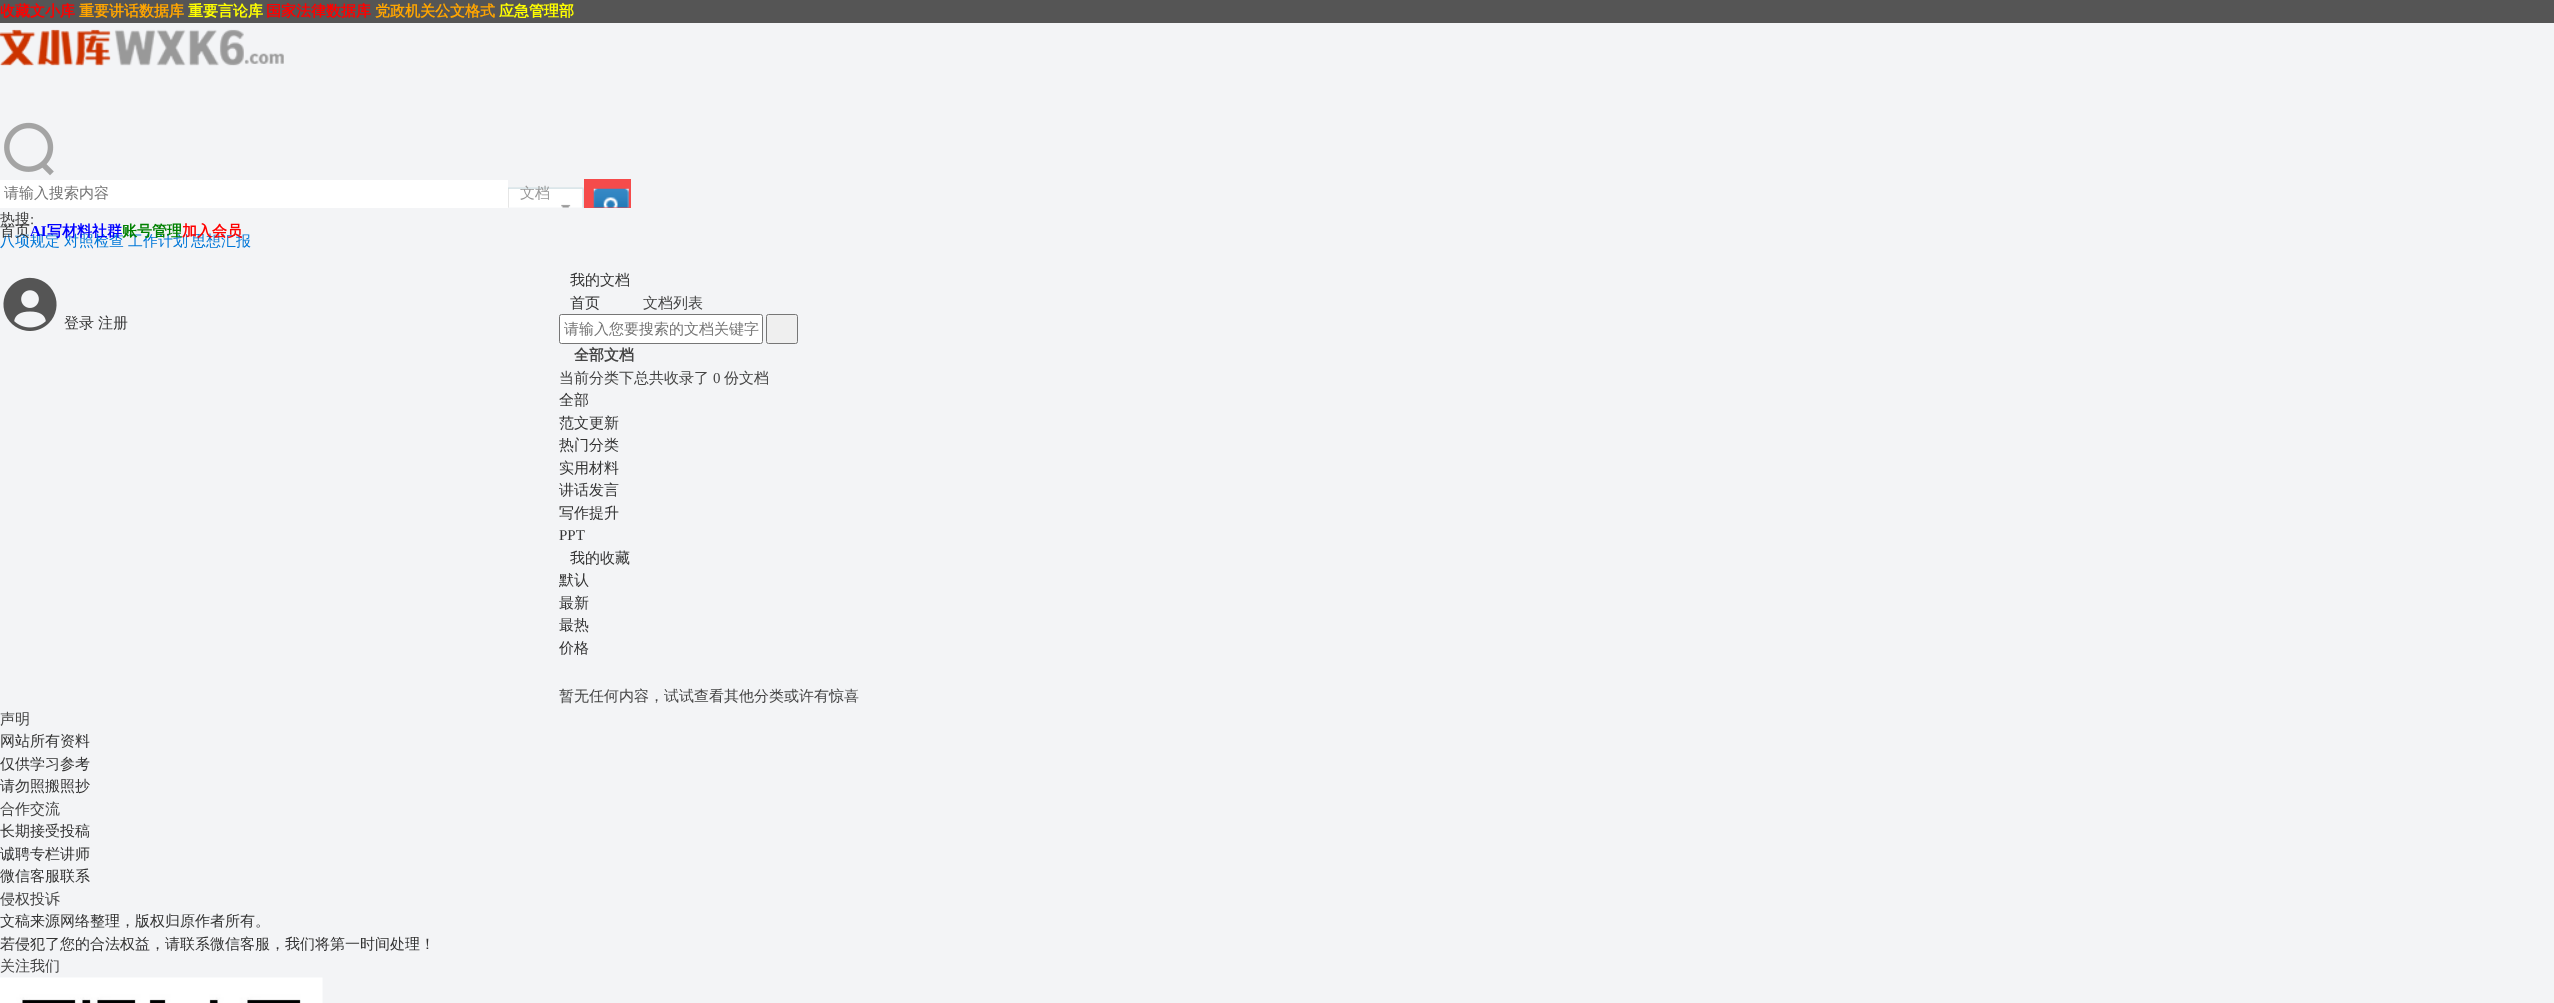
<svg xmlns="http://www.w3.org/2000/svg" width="2554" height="1003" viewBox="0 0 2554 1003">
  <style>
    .t1 { font: bold 15px WenQuanYi Zen Hei; fill: #f00; }
    .t2 { font: bold 15px WenQuanYi Zen Hei; fill: #ffa500; }
    .t3 { font: bold 15px WenQuanYi Zen Hei; fill: #ff0; }
    .t4 { font: 500 15px WenQuanYi Zen Hei; fill: #757575; }
    .t5 { font: 500 15px WenQuanYi Zen Hei; fill: #999; }
    .t6 { font: 500 15px WenQuanYi Zen Hei; fill: #444; }
    .t7 { font: 15px Liberation Serif; fill: #444; }
    .t8 { font: 500 15px WenQuanYi Zen Hei; fill: #0077d8; }
    .t9 { font: 500 15px WenQuanYi Zen Hei; fill: #333; }
    .t10 { font: bold 15px Liberation Serif; fill: #00f; }
    .t11 { font: bold 15px WenQuanYi Zen Hei; fill: #00f; }
    .t12 { font: bold 15px WenQuanYi Zen Hei; fill: #008000; }
    .t13 { font: bold 15px WenQuanYi Zen Hei; fill: #444; }
    .t14 { font: 15px Liberation Serif; fill: #333; }
  </style>
  <rect width="100%" height="100%" fill="#f3f4f6"/>
  <rect x="0" y="0" width="2554" height="23" fill="#555"/>
  <text x="0" y="16" class="t1">收藏文小库</text>
  <text x="79" y="16" class="t2">重要讲话数据库</text>
  <text x="188" y="16" class="t3">重要言论库</text>
  <text x="266" y="16" class="t1">国家法律数据库</text>
  <text x="375" y="16" class="t2">党政机关公文格式</text>
  <text x="499" y="16" class="t3">应急管理部</text>
  <image x="0" y="29" width="284" height="37" href="images/1.png"/>
  <image x="4" y="122" width="50" height="54" href="images/2.png"/>
  <rect x="0" y="180" width="508" height="28" fill="#fff"/>
  <text x="4" y="198" class="t4">请输入搜索内容</text>
  <image x="508" y="187" width="76" height="21" href="images/3.png"/>
  <text x="520" y="198" class="t5">文档</text>
  <rect x="584" y="179" width="47" height="29" fill="#f54b4b"/>
  <image x="593" y="188" width="36" height="20" href="images/4.png"/>
  <text x="0" y="224" class="t6">热搜</text>
  <text x="30" y="224" class="t7">:</text>
  <text x="0" y="246" class="t8">八项规定</text>
  <text x="64" y="246" class="t8">对照检查</text>
  <text x="128" y="246" class="t8">工作计划</text>
  <text x="191" y="246" class="t8">思想汇报</text>
  <image x="3" y="277" width="54" height="54" href="images/5.png"/>
  <text x="64" y="328" class="t9">登录</text>
  <text x="98" y="328" class="t9">注册</text>
  <text x="0" y="236" class="t9">首页</text>
  <text x="30" y="236" class="t10">AI</text>
  <text x="47" y="236" class="t11">写材料社群</text>
  <text x="122" y="236" class="t12">账号管理</text>
  <text x="182" y="236" class="t1">加入会员</text>
  <text x="570" y="285" class="t9">我的文档</text>
  <text x="570" y="308" class="t9">首页</text>
  <text x="643" y="308" class="t6">文档列表</text>
  <rect x="559.5" y="314.5" width="203" height="29" rx="2" fill="#fff" stroke="#767676"/>
  <text x="564" y="334" class="t4">请输入您要搜索的文档关键字</text>
  <rect x="766.5" y="314.5" width="31" height="29" rx="2" fill="#efefef" stroke="#767676"/>
  <text x="574" y="360" class="t13">全部文档</text>
  <text x="559" y="383" class="t6">当前分类下总共收录了</text>
  <text x="713" y="383" class="t7">0</text>
  <text x="724" y="383" class="t6">份文档</text>
  <text x="559" y="405" class="t9">全部</text>
  <text x="559" y="428" class="t9">范文更新</text>
  <text x="559" y="450" class="t9">热门分类</text>
  <text x="559" y="473" class="t9">实用材料</text>
  <text x="559" y="495" class="t9">讲话发言</text>
  <text x="559" y="518" class="t9">写作提升</text>
  <text x="559" y="540" class="t14">PPT</text>
  <text x="570" y="563" class="t9">我的收藏</text>
  <text x="559" y="585" class="t9">默认</text>
  <text x="559" y="608" class="t9">最新</text>
  <text x="559" y="630" class="t9">最热</text>
  <text x="559" y="653" class="t9">价格</text>
  <text x="559" y="701" class="t6">暂无任何内容，试试查看其他分类或许有惊喜</text>
  <text x="0" y="724" class="t6">声明</text>
  <text x="0" y="746" class="t9">网站所有资料</text>
  <text x="0" y="769" class="t9">仅供学习参考</text>
  <text x="0" y="791" class="t9">请勿照搬照抄</text>
  <text x="0" y="814" class="t6">合作交流</text>
  <text x="0" y="836" class="t9">长期接受投稿</text>
  <text x="0" y="859" class="t9">诚聘专栏讲师</text>
  <text x="0" y="881" class="t9">微信客服联系</text>
  <text x="0" y="904" class="t6">侵权投诉</text>
  <text x="0" y="926" class="t9">文稿来源网络整理，版权归原作者所有。</text>
  <text x="0" y="949" class="t9">若侵犯了您的合法权益，请联系微信客服，我们将第一时间处理！</text>
  <text x="0" y="971" class="t6">关注我们</text>
  <image x="0" y="977" width="323" height="26" href="images/6.png"/>
</svg>
